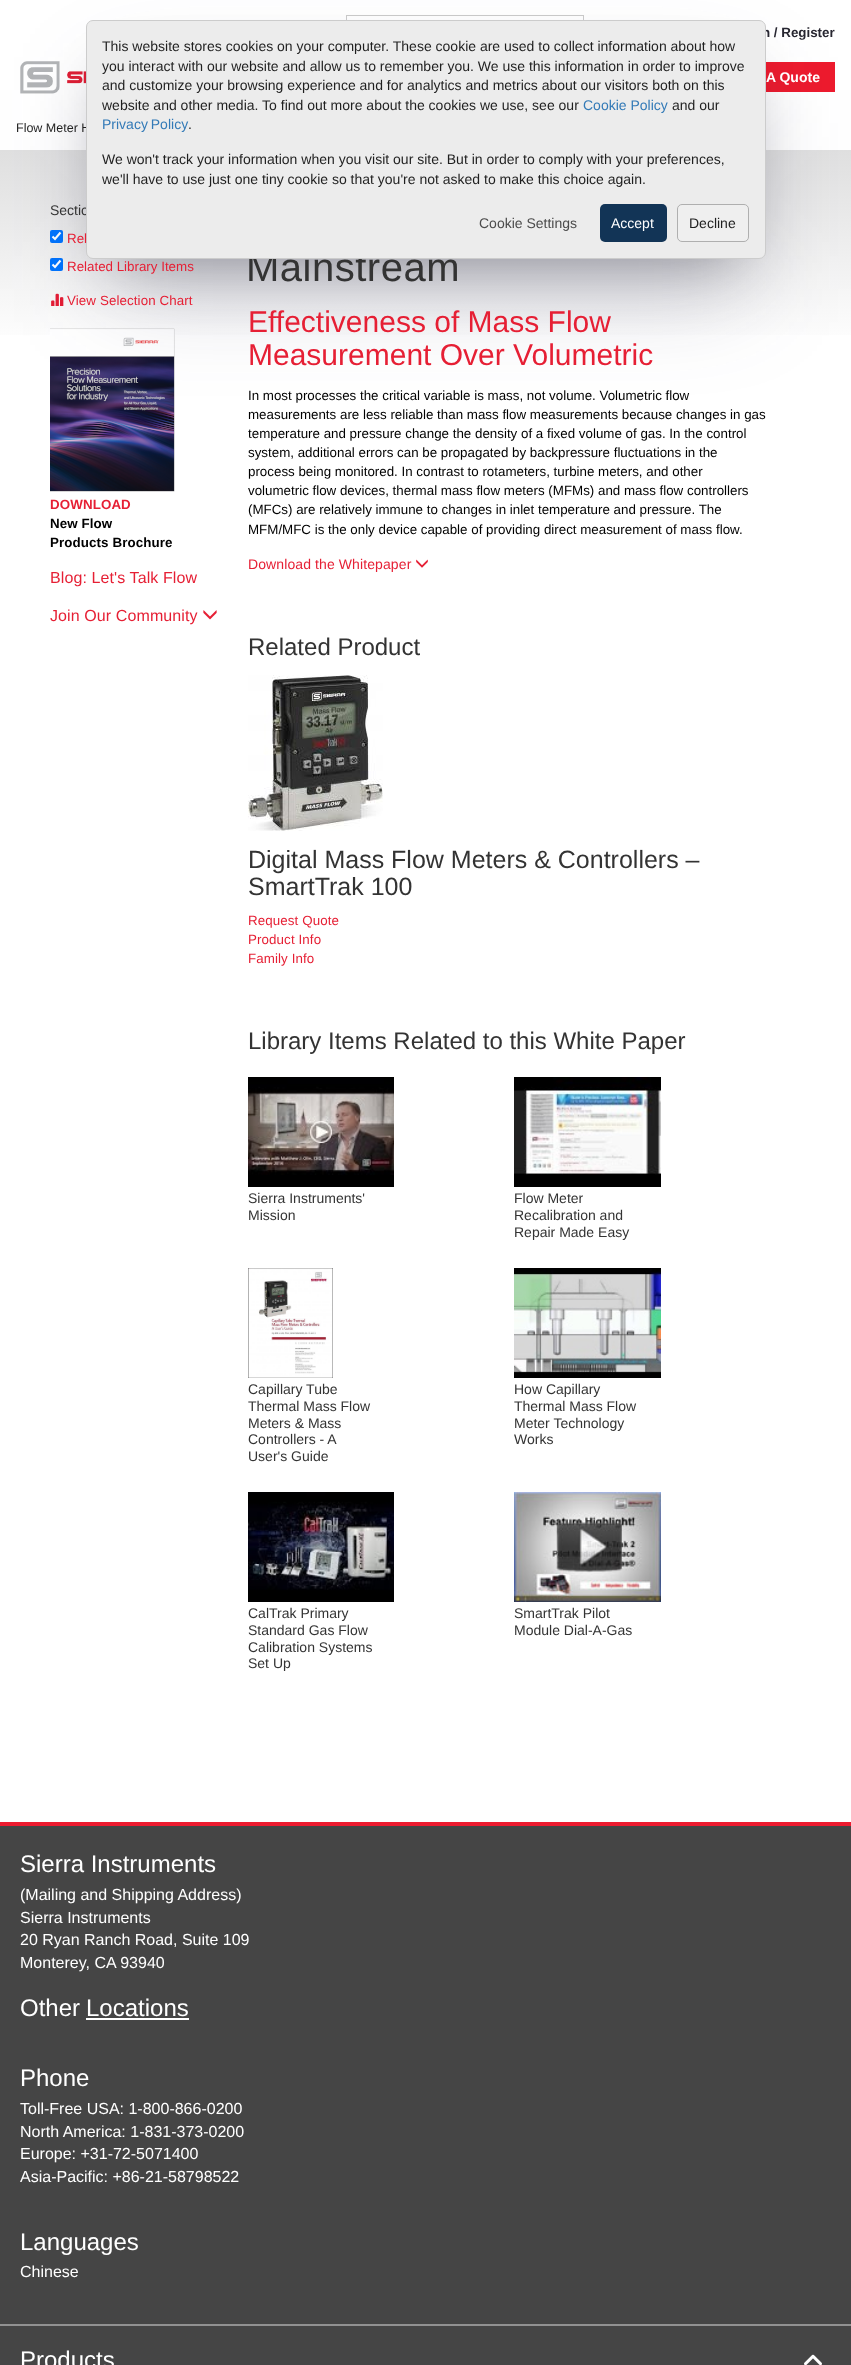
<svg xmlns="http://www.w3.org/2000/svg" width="851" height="2365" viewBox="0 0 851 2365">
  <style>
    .t1 { font: bold 13.35px Liberation Sans; fill: #282731; }
    .t2 { font: 12.5px Liberation Sans; fill: #1f1f1f; }
    .t3 { font: 14px Liberation Sans; fill: #333; }
    .t4 { font: 40px Liberation Sans; letter-spacing: 0.5px; fill: #333; }
    .t5 { font: 14px Liberation Sans; fill: #1f1f1f; }
    .t6 { font: 14px Liberation Sans; fill: #337ab7; }
    .t7 { font: 14px Liberation Sans; fill: #4b4b4b; }
    .t8 { font: 14px Liberation Sans; fill: #fff; }
    .t9 { font: bold 14px Liberation Sans; fill: #fff; }
    .t10 { font: 13.35px Liberation Sans; fill: #e61f34; }
    .t11 { font: 13.35px Liberation Sans; letter-spacing: 0.1px; fill: #e61f34; }
    .t12 { font: bold 13.35px Liberation Sans; letter-spacing: 0.1px; fill: #e61f34; }
    .t13 { font: bold 13.35px Liberation Sans; letter-spacing: 0.1px; fill: #000; }
    .t14 { font: 16px Liberation Sans; letter-spacing: 0.1px; fill: #e61f34; }
    .t15 { font: 30px Liberation Sans; fill: #e61f34; }
    .t16 { font: 13.35px Liberation Sans; fill: #000; }
    .t17 { font: 14px Liberation Sans; letter-spacing: 0.1px; fill: #e61f34; }
    .t18 { font: 24px Liberation Sans; fill: #333; }
    .t19 { font: 25px Liberation Sans; fill: #333; }
    .t20 { font: 24px Liberation Sans; fill: #fff; }
    .t21 { font: 16px Liberation Sans; fill: #fff; }
  </style>
  <defs>
    <linearGradient id="g1" gradientUnits="userSpaceOnUse" x1="425" y1="150" x2="426" y2="1822"><stop offset="0" stop-color="#e0e0e0"/><stop offset="0.12" stop-color="#fff"/></linearGradient>
  </defs>
  <rect width="100%" height="100%" fill="#fff"/>
  <rect x="346.5" y="15.5" width="237" height="35" fill="none" stroke="#ccc"/>
  <text x="762" y="37" class="t1">n / Register</text>
  <image x="20" y="61" width="66" height="33" href="images/1.png"/>
  <rect x="766" y="62" width="69" height="30" fill="#ed1b2e"/>
  <rect x="0" y="150" width="851" height="185" fill="url(#g1)"/>
  <rect x="50" y="230" width="13" height="13" rx="2" fill="#0075ff"/>
  <path d="M52.5 236.5L55 239L60.5 232.5" fill="none" stroke="#fff" stroke-width="2.1"/>
  <rect x="50" y="258" width="13" height="13" rx="2" fill="#0075ff"/>
  <path d="M52.5 264.5L55 267L60.5 260.5" fill="none" stroke="#fff" stroke-width="2.1"/>
  <image x="51" y="293" width="13" height="13" href="images/2.png"/>
  <image x="50" y="328" width="125" height="164" href="images/3.png"/>
  <rect x="116" y="80" width="620" height="179" fill="#0000004d" filter="blur(30px)"/>
  <rect x="106" y="90" width="640" height="199" fill="#32325d40" filter="blur(50px)"/>
  <text x="16" y="132" class="t2">Flow Meter H</text>
  <text x="50" y="215" class="t3">Sectio</text>
  <text x="246" y="281" class="t4">Mainstream</text>
  <rect x="86.5" y="20.5" width="679" height="238" rx="6.5" fill="#ececec" stroke="#ccc"/>
  <text x="102" y="51" class="t5">This website stores cookies on your computer. These cookie are used to collect information about how</text>
  <text x="102" y="71" class="t5">you interact with our website and allow us to remember you. We use this information in order to improve</text>
  <text x="102" y="90" class="t5">and customize your browsing experience and for analytics and metrics about our visitors both on this</text>
  <text x="102" y="110" class="t5">website and other media. To find out more about the cookies we use, see our</text>
  <text x="583" y="110" class="t6">Cookie Policy</text>
  <text x="672" y="110" class="t5">and our</text>
  <text x="102" y="129" word-spacing="-1" class="t6">Privacy Policy</text>
  <text x="188" y="129" class="t5">.</text>
  <text x="102" y="164" class="t5">We won't track your information when you visit our site. But in order to comply with your preferences,</text>
  <text x="102" y="184" class="t5">we'll have to use just one tiny cookie so that you're not asked to make this choice again.</text>
  <text x="479" y="228" class="t7">Cookie Settings</text>
  <rect x="600" y="204" width="67" height="38" rx="5" fill="#123456"/>
  <text x="611" y="228" class="t8">Accept</text>
  <rect x="677.5" y="204.5" width="71" height="37" rx="4.5" fill="#efefef" stroke="#afafaf"/>
  <text x="689" y="228" class="t5">Decline</text>
  <text x="766" y="82" class="t9">A Quote</text>
  <text x="67" y="243" class="t10">Rel</text>
  <text x="67" y="271" class="t10">Related Library Items</text>
  <text x="67" y="305" class="t11">View Selection Chart</text>
  <text x="50" y="509" class="t12">DOWNLOAD</text>
  <text x="50" y="528" class="t13">New Flow</text>
  <text x="50" y="547" class="t13">Products Brochure</text>
  <text x="50" y="583" class="t14">Blog: Let's Talk Flow</text>
  <text x="50" y="621" class="t14">Join Our Community</text>
  <image x="203" y="610" width="14" height="10" href="images/4.png"/>
  <text x="248" y="332" class="t15">Effectiveness of Mass Flow</text>
  <text x="248" y="365" class="t15">Measurement Over Volumetric</text>
  <text x="248" y="400" class="t16">In most processes the critical variable is mass, not volume. Volumetric flow</text>
  <text x="248" y="419" class="t16">measurements are less reliable than mass flow measurements because changes in gas</text>
  <text x="248" y="438" class="t16">temperature and pressure change the density of a fixed volume of gas. In the control</text>
  <text x="248" y="457" class="t16">system, additional errors can be propagated by backpressure fluctuations in the</text>
  <text x="248" y="476" class="t16">process being monitored. In contrast to rotameters, turbine meters, and other</text>
  <text x="248" y="495" class="t16">volumetric flow devices, thermal mass flow meters (MFMs) and mass flow controllers</text>
  <text x="248" y="514" class="t16">(MFCs) are relatively immune to changes in inlet temperature and pressure. The</text>
  <text x="248" y="534" class="t16">MFM/MFC is the only device capable of providing direct measurement of mass flow.</text>
  <text x="248" y="569" class="t17">Download the Whitepaper</text>
  <image x="416" y="559" width="12" height="9" href="images/5.png"/>
  <text x="248" y="655" class="t18">Related Product</text>
  <image x="248" y="675" width="135" height="156" href="images/6.png"/>
  <text x="248" y="868" class="t19">Digital Mass Flow Meters &amp; Controllers –</text>
  <text x="248" y="895" class="t19">SmartTrak 100</text>
  <text x="248" y="925" class="t11">Request Quote</text>
  <text x="248" y="944" class="t11">Product Info</text>
  <text x="248" y="963" class="t11">Family Info</text>
  <text x="248" y="1049" class="t18">Library Items Related to this White Paper</text>
  <image x="248" y="1077" width="146" height="110" href="images/7.png"/>
  <text x="248" y="1203" class="t3">Sierra Instruments'</text>
  <text x="248" y="1220" class="t3">Mission</text>
  <image x="514" y="1077" width="147" height="110" href="images/8.png"/>
  <text x="514" y="1203" class="t3">Flow Meter</text>
  <text x="514" y="1220" class="t3">Recalibration and</text>
  <text x="514" y="1237" class="t3">Repair Made Easy</text>
  <image x="248" y="1268" width="85" height="110" href="images/9.png"/>
  <text x="248" y="1394" class="t3">Capillary Tube</text>
  <text x="248" y="1411" class="t3">Thermal Mass Flow</text>
  <text x="248" y="1428" class="t3">Meters &amp; Mass</text>
  <text x="248" y="1444" class="t3">Controllers - A</text>
  <text x="248" y="1461" class="t3">User's Guide</text>
  <image x="514" y="1268" width="147" height="110" href="images/10.png"/>
  <text x="514" y="1394" class="t3">How Capillary</text>
  <text x="514" y="1411" class="t3">Thermal Mass Flow</text>
  <text x="514" y="1428" class="t3">Meter Technology</text>
  <text x="514" y="1444" class="t3">Works</text>
  <image x="248" y="1492" width="146" height="110" href="images/11.png"/>
  <text x="248" y="1618" class="t3">CalTrak Primary</text>
  <text x="248" y="1635" class="t3">Standard Gas Flow</text>
  <text x="248" y="1652" class="t3">Calibration Systems</text>
  <text x="248" y="1668" class="t3">Set Up</text>
  <image x="514" y="1492" width="147" height="110" href="images/12.png"/>
  <text x="514" y="1618" class="t3">SmartTrak Pilot</text>
  <text x="514" y="1635" class="t3">Module Dial-A-Gas</text>
  <rect x="0" y="1826" width="851" height="539" fill="#454545"/>
  <rect x="0" y="1822" width="851" height="4" fill="#ed1b2f"/>
  <text x="20" y="1872" class="t20">Sierra Instruments</text>
  <text x="20" y="1900" class="t21">(Mailing and Shipping Address)</text>
  <text x="20" y="1923" class="t21">Sierra Instruments</text>
  <text x="20" y="1945" class="t21">20 Ryan Ranch Road, Suite 109</text>
  <text x="20" y="1968" class="t21">Monterey, CA 93940</text>
  <text x="20" y="2016" class="t20">Other</text>
  <text x="86" y="2016" class="t20">Locations</text>
  <rect x="86" y="2018" width="103" height="2" fill="#fff"/>
  <text x="20" y="2086" class="t20">Phone</text>
  <text x="20" y="2114" class="t21">Toll-Free USA: 1-800-866-0200</text>
  <text x="20" y="2137" class="t21">North America: 1-831-373-0200</text>
  <text x="20" y="2159" class="t21">Europe: +31-72-5071400</text>
  <text x="20" y="2182" class="t21">Asia-Pacific: +86-21-58798522</text>
  <text x="20" y="2250" class="t20">Languages</text>
  <text x="20" y="2277" class="t21">Chinese</text>
  <rect x="0" y="2324" width="851" height="2" fill="#919191"/>
  <text x="20" y="2368" class="t20">Products</text>
  <image x="804" y="2354" width="18" height="11" href="images/13.png"/>
</svg>
